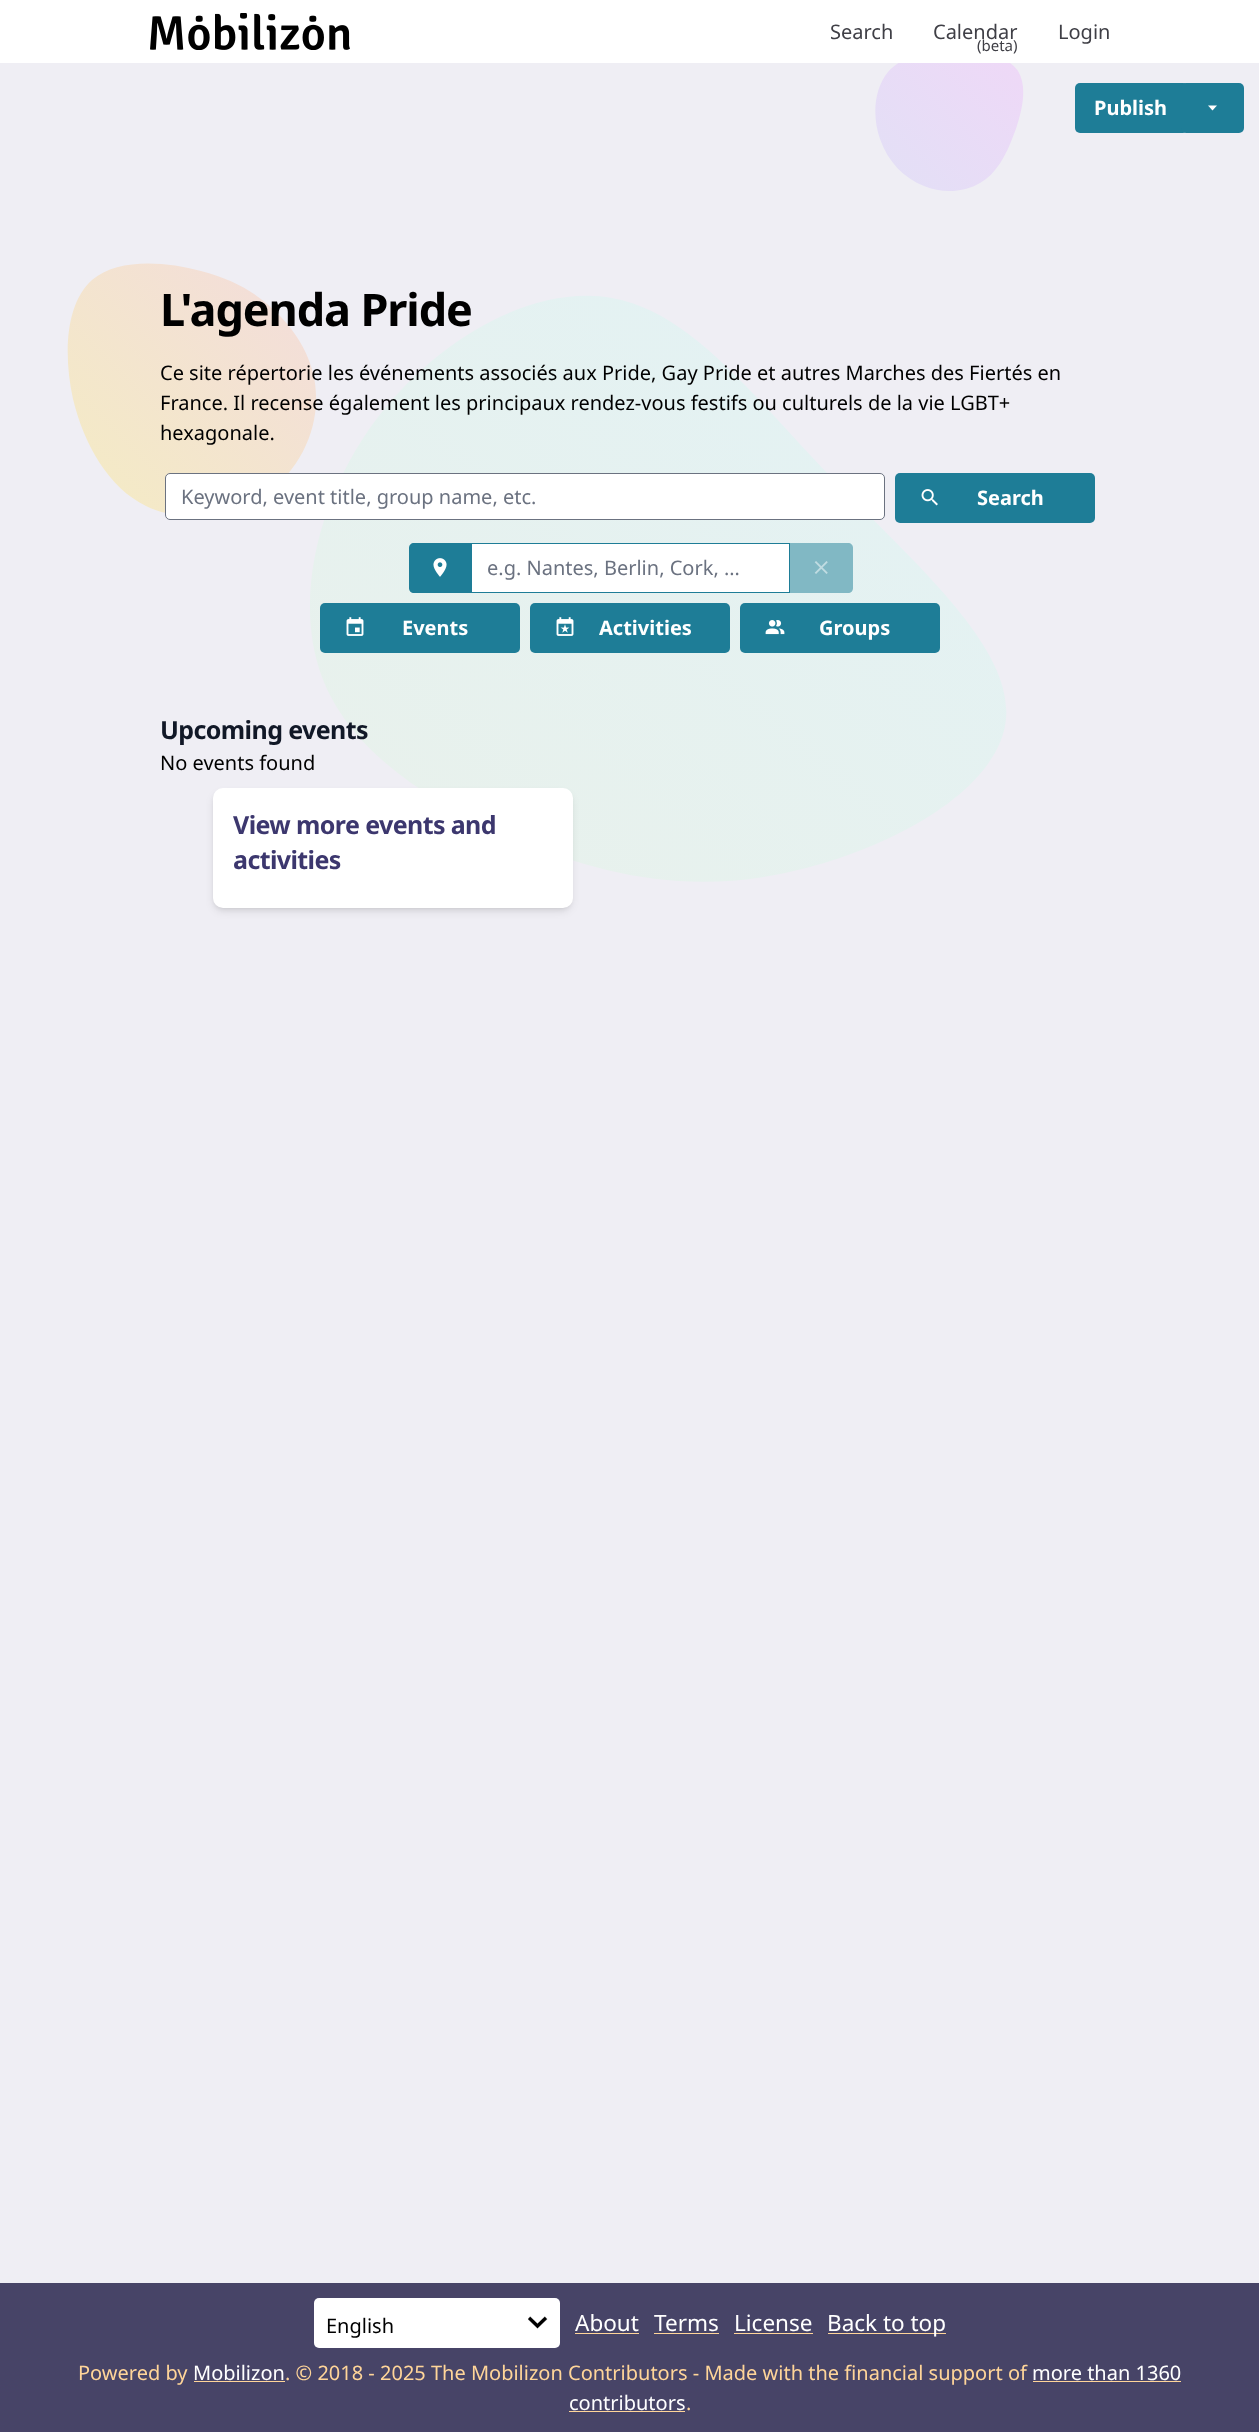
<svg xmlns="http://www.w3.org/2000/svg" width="1259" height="2432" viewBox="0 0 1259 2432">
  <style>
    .t1 { font: 20px Noto Sans; fill: #3f3f46; }
    .t2 { font: 15px Noto Sans; fill: #3f3f46; }
    .t3 { font: bold 20px Noto Sans; fill: #fff; }
    .t4 { font: bold 45px Noto Sans; letter-spacing: -1.1px; fill: #000; }
    .t5 { font: 20px Noto Sans; fill: #000; }
    .t6 { font: 20px Noto Sans; fill: #6b7280; }
    .t7 { font: bold 25px Noto Sans; letter-spacing: -0.6px; fill: #111827; }
    .t8 { font: bold 25px Noto Sans; letter-spacing: -0.6px; fill: #3c376e; }
    .t9 { font: 22.5px Noto Sans; fill: #fff; }
    .t10 { font: 20px Noto Sans; fill: #ffd599; }
    .t11 { font: 20px Noto Sans; fill: #fff; }
  </style>
  <defs>
    <linearGradient id="g1" gradientUnits="userSpaceOnUse" x1="875" y1="191" x2="1016" y2="43"><stop offset="0" stop-color="#e2e0f6"/><stop offset="1" stop-color="#efd8f7"/></linearGradient>
    <linearGradient id="g2" gradientUnits="userSpaceOnUse" x1="68" y1="516" x2="320" y2="267"><stop offset="0" stop-color="#f4ecc3"/><stop offset="1" stop-color="#f3dcdc"/></linearGradient>
    <linearGradient id="g3" gradientUnits="userSpaceOnUse" x1="310" y1="882" x2="887" y2="196"><stop offset="0" stop-color="#e9f1eb"/><stop offset="1" stop-color="#e2f2f5"/></linearGradient>
  </defs>
  <rect width="100%" height="100%" fill="#efeef4"/>
  <path d="M1018 71C1028 87 1022 113 1014 134C1006 156 996 174 980 183C965 192 943 194 924 186C904 178 888 162 880 139C872 116 874 89 888 72C902 56 928 50 955 50C982 50 1008 56 1018 71Z" fill="url(#g1)"/>
  <rect x="0" y="0" width="1259" height="63" fill="#fff"/>
  <image x="150" y="13" width="200" height="37" href="images/1.png"/>
  <text x="830" y="39" class="t1">Search</text>
  <text x="933" y="39" class="t1">Calendar</text>
  <text x="977" y="51" class="t2">(beta)</text>
  <text x="1058" y="39" class="t1">Login</text>
  <path d="M281 317C301 338 317 367 316 400C316 434 298 472 265 495C232 517 183 524 146 506C109 488 84 445 73 399C63 353 66 303 92 280C117 258 165 261 201 271C236 280 260 295 281 317Z" fill="url(#g2)"/>
  <path d="M832 478C912 561 1013 646 1006 719C999 792 885 852 785 873C686 894 601 875 518 840C434 805 351 754 322 677C293 600 318 496 378 417C439 338 534 284 612 298C691 312 751 394 832 478Z" fill="url(#g3)"/>
  <rect x="1075" y="83" width="113" height="50" rx="5" fill="#1e7d97"/>
  <text x="1094" y="115" class="t3">Publish</text>
  <rect x="1181" y="83" width="63" height="50" rx="5" fill="#1e7d97"/>
  <path d="M1208 105.5L1212.5 110.5L1217 105.5Z" fill="#fff"/>
  <text x="160" y="326" class="t4">L'agenda Pride</text>
  <text x="160" y="380" class="t5">Ce site répertorie les événements associés aux Pride, Gay Pride et autres Marches des Fiertés en</text>
  <text x="160" y="410" class="t5">France. Il recense également les principaux rendez-vous festifs ou culturels de la vie LGBT+</text>
  <text x="160" y="440" class="t5">hexagonale.</text>
  <rect x="165.5" y="473.5" width="719" height="46" rx="4.5" fill="#fff" stroke="#6b7280"/>
  <text x="181" y="504" class="t6">Keyword, event title, group name, etc.</text>
  <rect x="895" y="473" width="200" height="50" rx="5" fill="#1e7d97"/>
  <image x="921" y="489" width="17" height="17" href="images/2.png"/>
  <text x="977" y="505" class="t3">Search</text>
  <path d="M414 543H471V593H414C411 593 409 591 409 588V548C409 545 411 543 414 543Z" fill="#1e7d97"/>
  <image x="433" y="558" width="14" height="19" href="images/3.png"/>
  <rect x="471.5" y="543.5" width="318" height="49" fill="#fff" stroke="#1e7d97"/>
  <text x="487" y="575" class="t6">e.g. Nantes, Berlin, Cork, …</text>
  <path d="M790 543H848C851 543 853 545 853 548V588C853 591 851 593 848 593H790Z" fill="#81b8c4"/>
  <image x="814" y="561" width="14" height="13" href="images/4.png"/>
  <rect x="320" y="603" width="200" height="50" rx="5" fill="#1e7d97"/>
  <image x="346" y="617" width="18" height="19" href="images/5.png"/>
  <text x="402" y="635" class="t3">Events</text>
  <rect x="530" y="603" width="200" height="50" rx="5" fill="#1e7d97"/>
  <image x="556" y="617" width="18" height="19" href="images/6.png"/>
  <text x="599" y="635" class="t3">Activities</text>
  <rect x="740" y="603" width="200" height="50" rx="5" fill="#1e7d97"/>
  <image x="765" y="620" width="20" height="15" href="images/7.png"/>
  <text x="819" y="635" class="t3">Groups</text>
  <text x="160" y="739" class="t7">Upcoming events</text>
  <text x="160" y="770" class="t5">No events found</text>
  <rect x="215" y="793" width="355" height="115" rx="8" fill="#0000001a" filter="blur(2.5px)"/>
  <rect x="214" y="794" width="357" height="117" rx="9" fill="#0000001a" filter="blur(4px)"/>
  <rect x="213" y="788" width="360" height="120" rx="10" fill="#fff"/>
  <text x="233" y="834" class="t8">View more events and</text>
  <text x="233" y="869" class="t8">activities</text>
  <rect x="0" y="2283" width="1259" height="149" fill="#474467"/>
  <rect x="314" y="2298" width="246" height="50" rx="5" fill="#fff"/>
  <image x="528" y="2316" width="20" height="13" href="images/8.png"/>
  <text x="326" y="2333" class="t5">English</text>
  <text x="575" y="2331" class="t9">About</text>
  <rect x="575" y="2333" width="64" height="1" fill="#ffd599"/>
  <text x="654" y="2331" class="t9">Terms</text>
  <rect x="654" y="2333" width="65" height="1" fill="#ffd599"/>
  <text x="734" y="2331" class="t9">License</text>
  <rect x="734" y="2333" width="79" height="1" fill="#ffd599"/>
  <rect x="828" y="2333" width="118" height="1" fill="#ffd599"/>
  <text x="827" y="2331" class="t9">Back to top</text>
  <text x="78" y="2380" class="t10">Powered by</text>
  <text x="193" y="2380" class="t11">Mobilizon</text>
  <text x="285" y="2380" class="t10">. © 2018 - 2025 The Mobilizon Contributors - Made with the financial support of</text>
  <rect x="194" y="2381" width="91" height="1" fill="#ffd599"/>
  <text x="1032" y="2380" class="t11">more than 1360</text>
  <rect x="1033" y="2381" width="148" height="1" fill="#ffd599"/>
  <text x="569" y="2410" class="t11">contributors</text>
  <text x="686" y="2410" class="t10">.</text>
  <rect x="569" y="2411" width="116" height="1" fill="#ffd599"/>
</svg>
